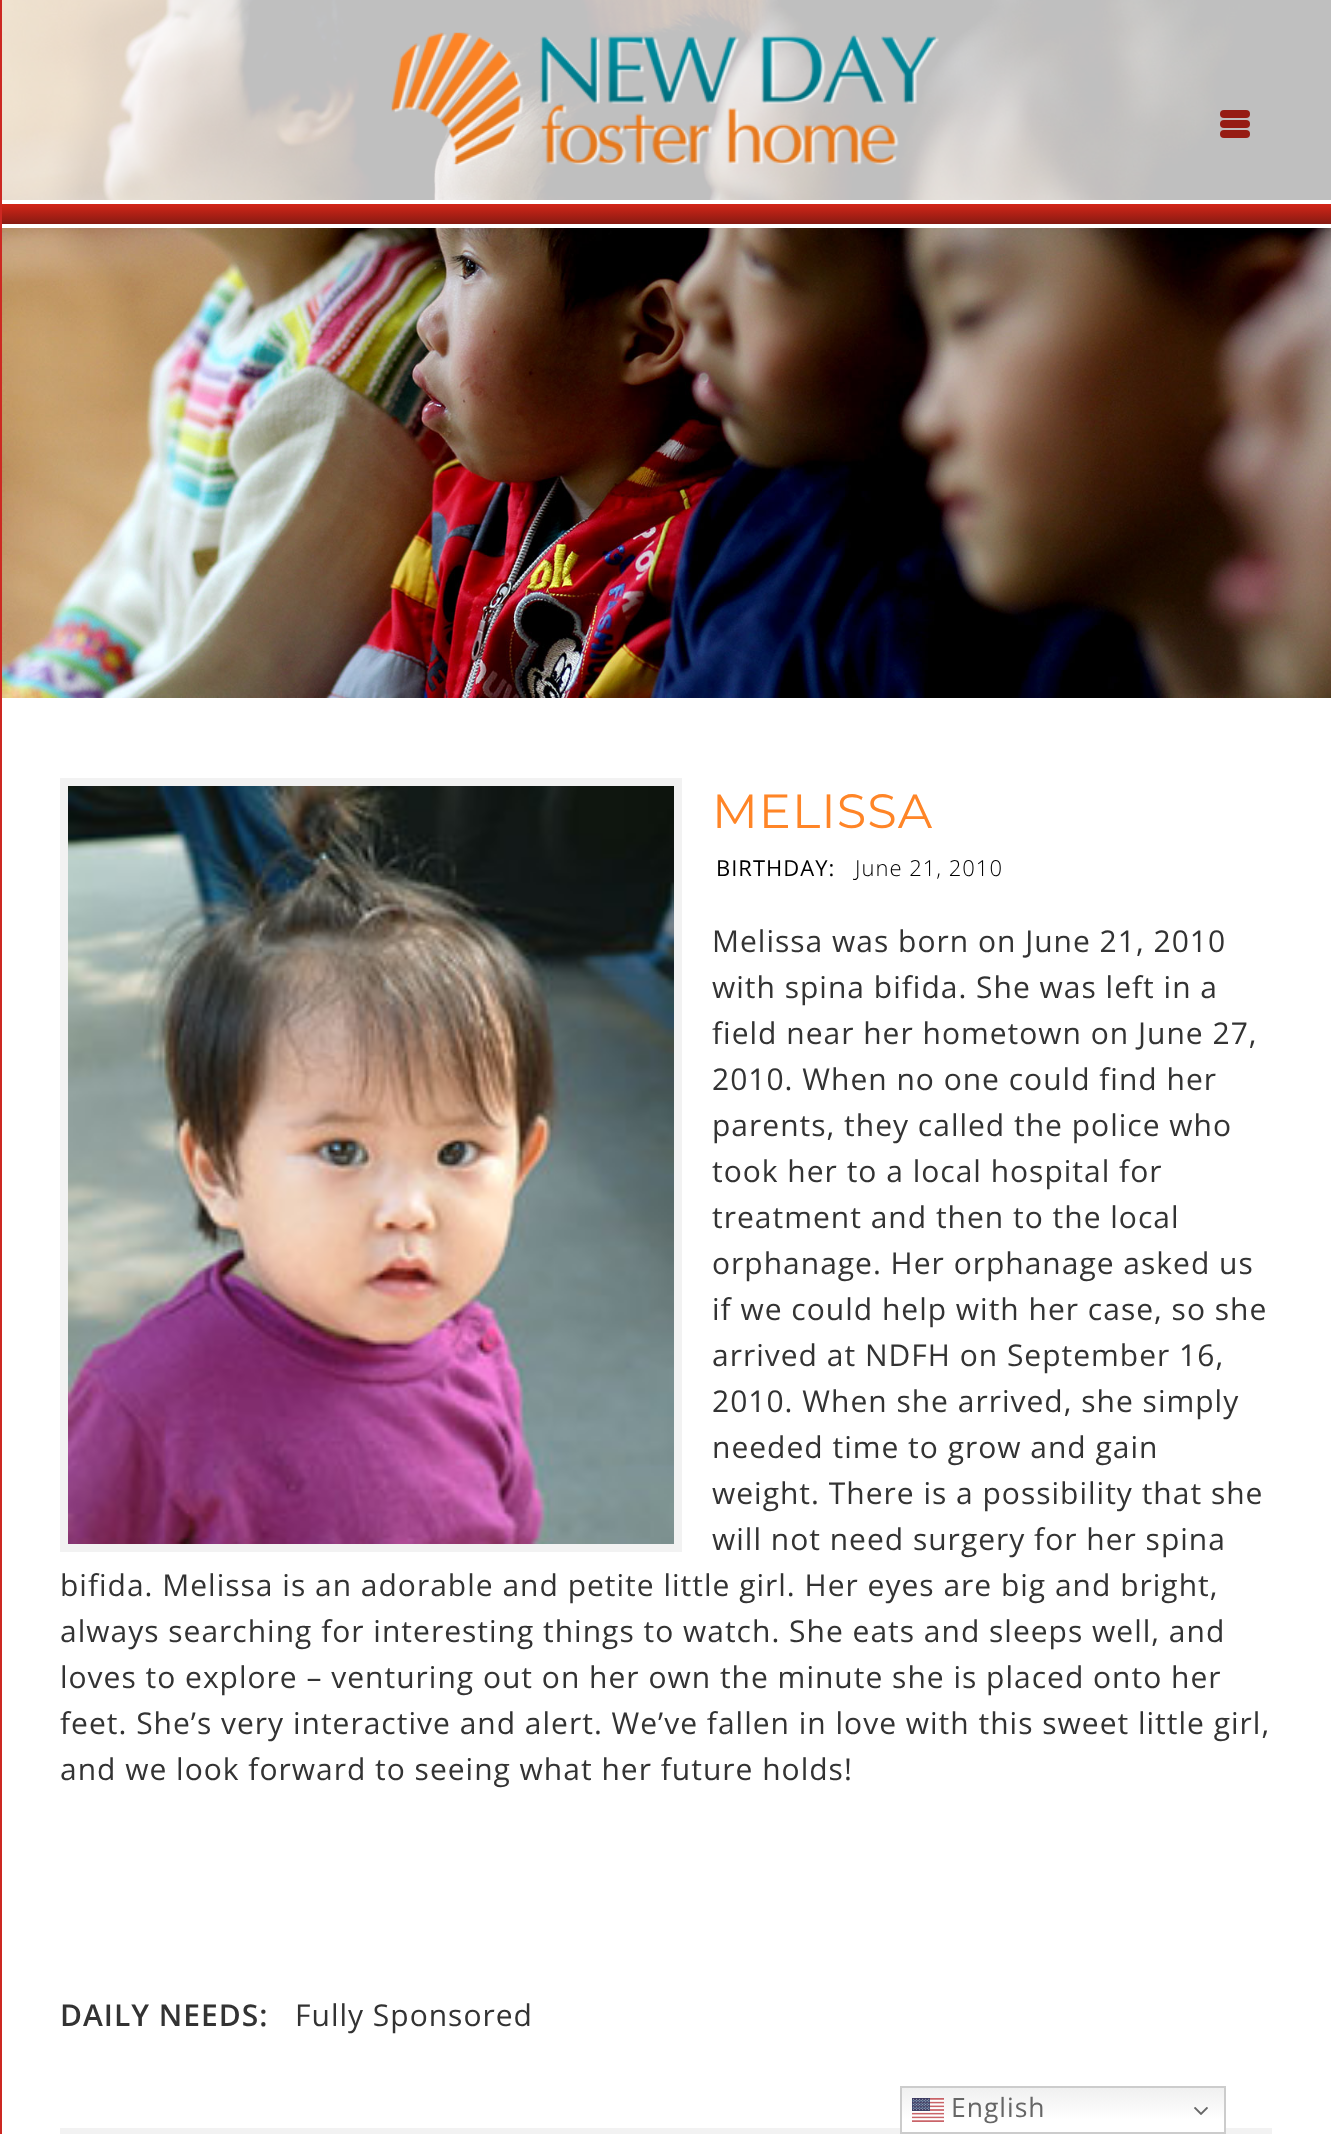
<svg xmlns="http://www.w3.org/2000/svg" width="1331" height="2134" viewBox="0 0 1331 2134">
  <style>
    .t1 { font: 48px Montserrat; letter-spacing: 1px; fill: #ff8527; }
    .t2 { font: 22px Open Sans; letter-spacing: 1px; fill: #000; }
    .t3 { font: 300 22px Open Sans; letter-spacing: 1px; fill: #000; }
    .t4 { font: 30px Open Sans; letter-spacing: 1px; fill: #333; }
    .t5 { font: 600 30px Open Sans; letter-spacing: 1px; fill: #333; }
    .t6 { font: 26.5px Open Sans; letter-spacing: 1px; fill: #666; }
  </style>
  <defs>
    <linearGradient id="g1" gradientUnits="userSpaceOnUse" x1="666" y1="204" x2="666" y2="224"><stop offset="0" stop-color="#d42618"/><stop offset="1" stop-color="#871a12"/></linearGradient>
    <linearGradient id="g2" gradientUnits="userSpaceOnUse" x1="1063" y1="2086" x2="1063" y2="2134"><stop offset="0" stop-color="#efefef"/><stop offset="0.7" stop-color="#fff"/></linearGradient>
  </defs>
  <rect width="100%" height="100%" fill="#fff"/>
  <image x="2" y="0" width="1329" height="698" href="images/2.png"/>
  <rect x="2" y="0" width="1329" height="200" fill="#ffffffbf"/>
  <image x="391" y="32" width="548" height="134" href="images/1.png"/>
  <rect x="2" y="204" width="1329" height="20" fill="url(#g1)"/>
  <rect x="0" y="200" width="1331" height="4" fill="#fff"/>
  <rect x="0" y="224" width="1331" height="4" fill="#fff"/>
  <rect x="0" y="0" width="2" height="2134" fill="#cd2822"/>
  <rect x="1220" y="120" width="30" height="8" rx="4" fill="#961c13"/>
  <rect x="1220" y="110" width="30" height="8" rx="4" fill="#961c13"/>
  <rect x="1220" y="130" width="30" height="8" rx="4" fill="#961c13"/>
  <rect x="64" y="782" width="614" height="766" fill="none" stroke="#f2f2f2" stroke-width="8"/>
  <image x="68" y="786" width="606" height="758" href="images/3.png"/>
  <text x="712" y="828" class="t1">MELISSA</text>
  <text x="716" y="876" class="t2">BIRTHDAY:</text>
  <text x="855" y="876" class="t3">June 21, 2010</text>
  <text x="712" y="952" class="t4">Melissa was born on June 21, 2010</text>
  <text x="712" y="998" class="t4">with spina bifida. She was left in a</text>
  <text x="712" y="1044" class="t4">field near her hometown on June 27,</text>
  <text x="712" y="1090" class="t4">2010. When no one could find her</text>
  <text x="712" y="1136" class="t4">parents, they called the police who</text>
  <text x="712" y="1182" class="t4">took her to a local hospital for</text>
  <text x="712" y="1228" class="t4">treatment and then to the local</text>
  <text x="712" y="1274" class="t4">orphanage. Her orphanage asked us</text>
  <text x="712" y="1320" class="t4">if we could help with her case, so she</text>
  <text x="712" y="1366" class="t4">arrived at NDFH on September 16,</text>
  <text x="712" y="1412" class="t4">2010. When she arrived, she simply</text>
  <text x="712" y="1458" class="t4">needed time to grow and gain</text>
  <text x="712" y="1504" class="t4">weight. There is a possibility that she</text>
  <text x="712" y="1550" class="t4">will not need surgery for her spina</text>
  <text x="60" y="1596" class="t4">bifida. Melissa is an adorable and petite little girl. Her eyes are big and bright,</text>
  <text x="60" y="1642" class="t4">always searching for interesting things to watch. She eats and sleeps well, and</text>
  <text x="60" y="1688" class="t4">loves to explore – venturing out on her own the minute she is placed onto her</text>
  <text x="60" y="1734" class="t4">feet. She’s very interactive and alert. We’ve fallen in love with this sweet little girl,</text>
  <text x="60" y="1780" class="t4">and we look forward to seeing what her future holds!</text>
  <text x="60" y="2026" class="t5">DAILY NEEDS:</text>
  <text x="295" y="2026" class="t4">Fully Sponsored</text>
  <rect x="60" y="2128" width="1212" height="6" fill="#f2f2f2"/>
  <rect x="902" y="2088" width="322" height="44" fill="url(#g2)"/>
  <rect x="901" y="2087" width="324" height="46" fill="none" stroke="#ccc" stroke-width="2"/>
  <image x="912" y="2098" width="32" height="24" href="images/4.png"/>
  <text x="951" y="2117" class="t6">English</text>
  <image x="1194" y="2107" width="14" height="8" href="images/5.png"/>
</svg>
